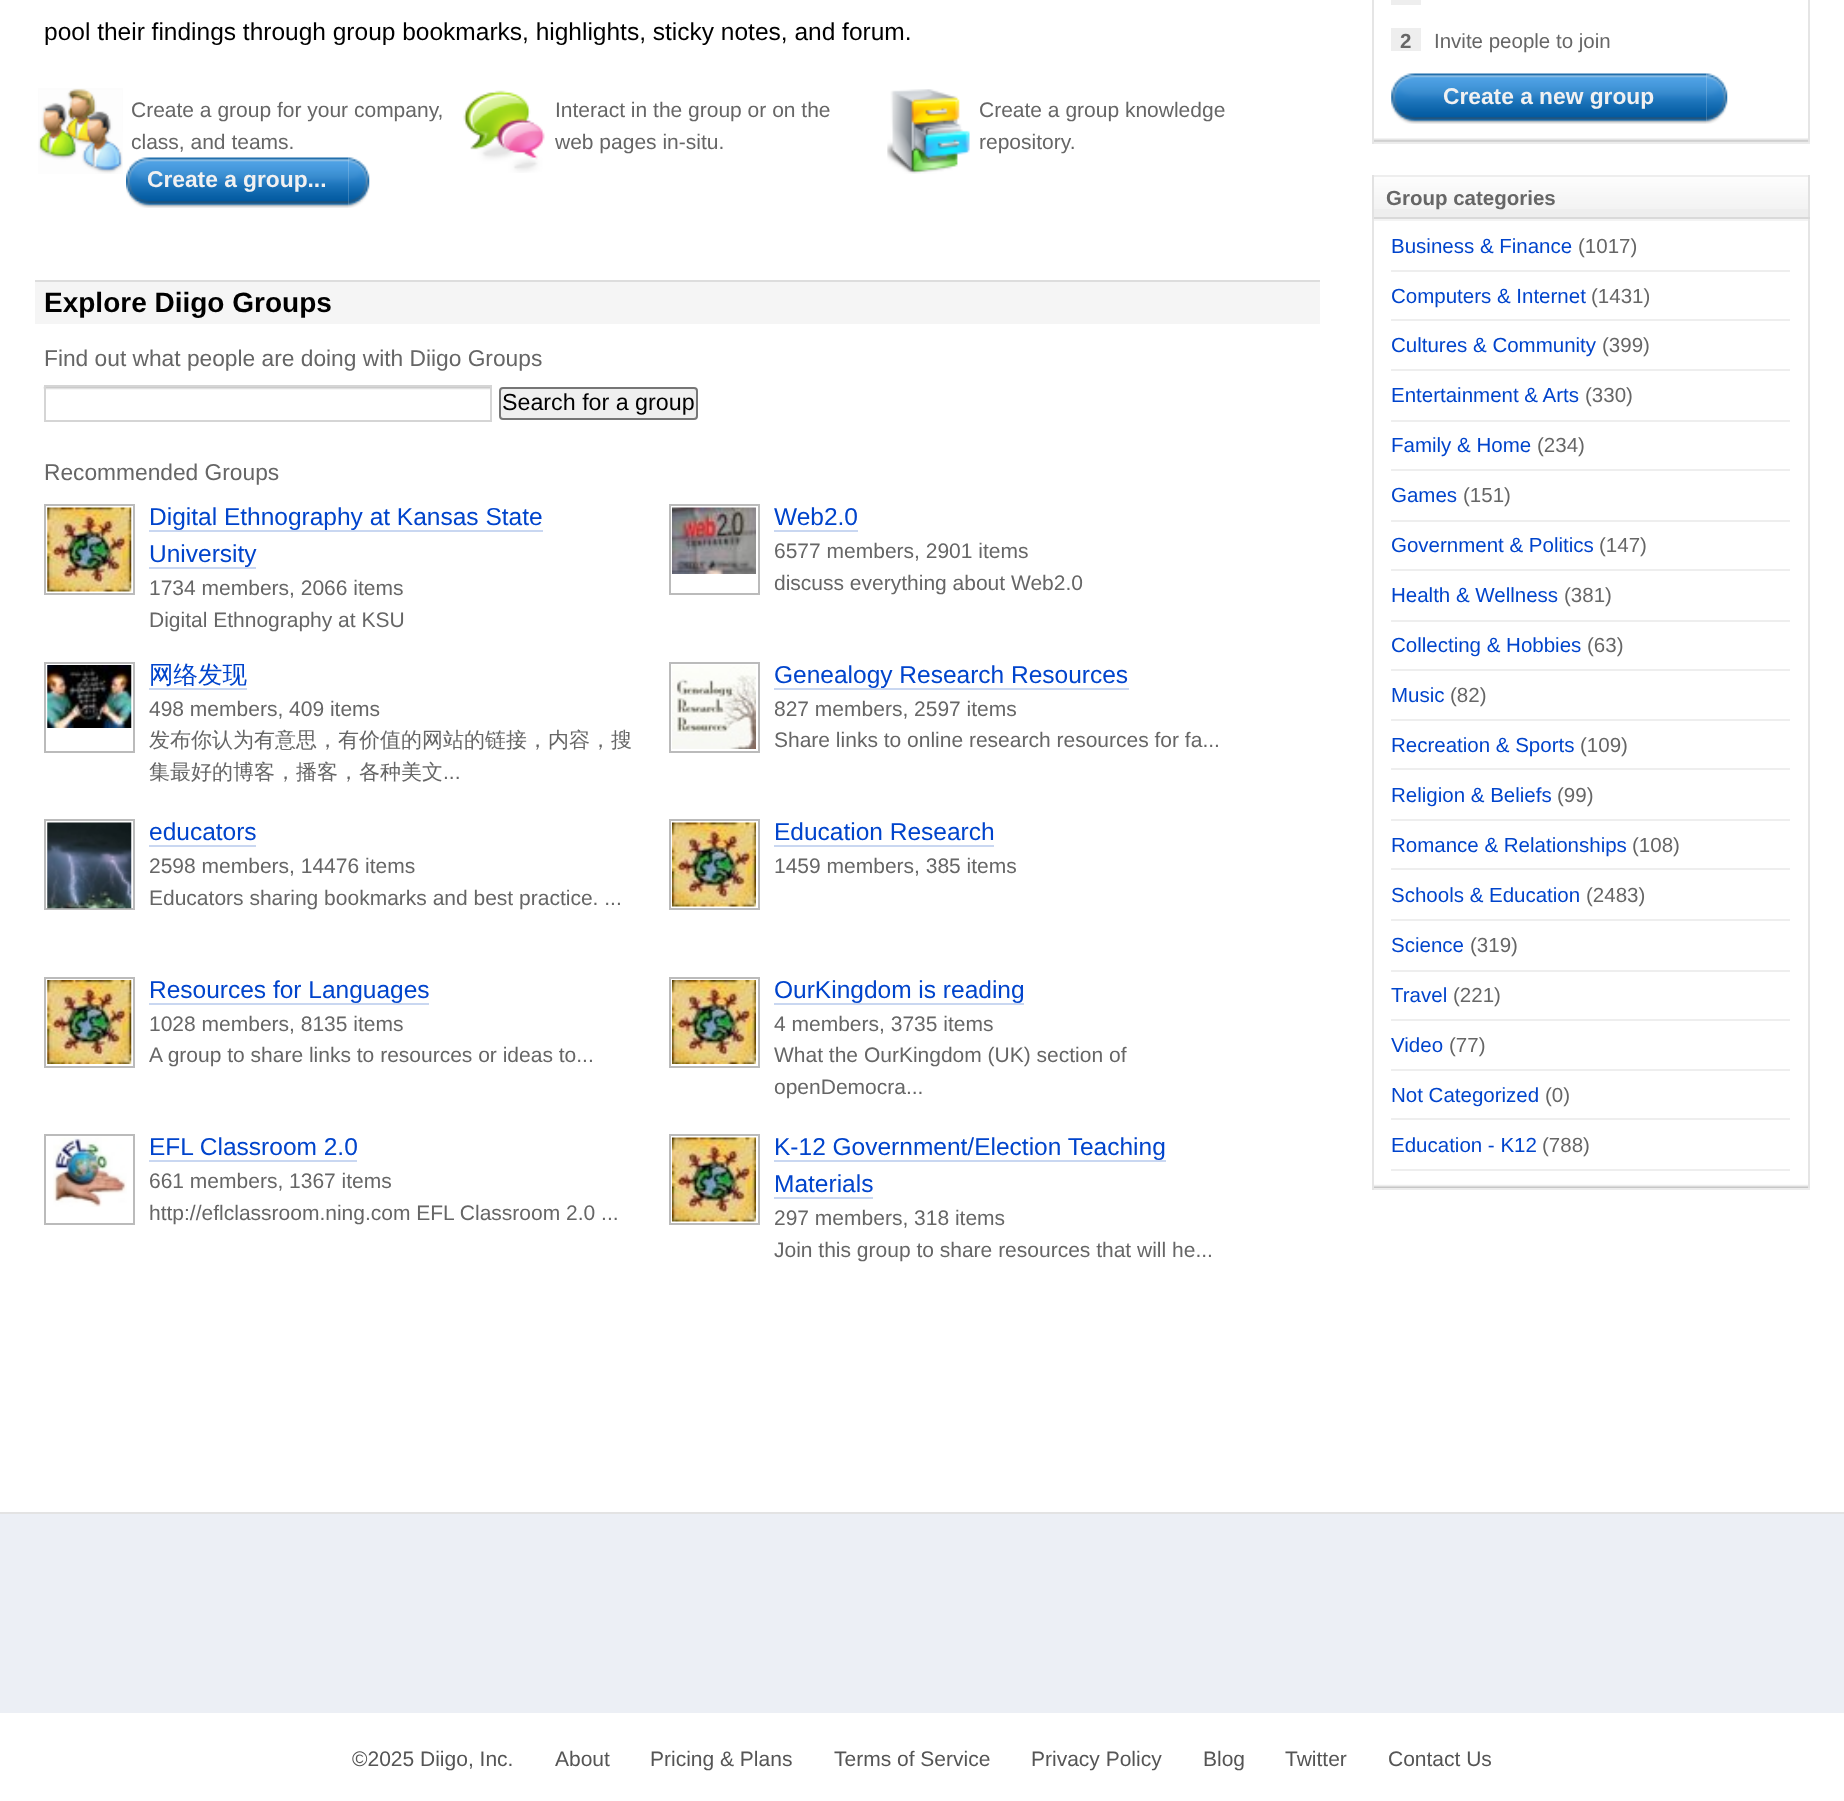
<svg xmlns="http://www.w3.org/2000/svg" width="1844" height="1801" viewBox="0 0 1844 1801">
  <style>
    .t1 { font: 24.5px Liberation Sans; fill: #000; }
    .t2 { font: 21px Liberation Sans; fill: #666; }
    .t3 { font: bold 22.75px Liberation Sans; fill: #f1f1f1; }
    .t4 { font: bold 28px Liberation Sans; fill: #000; }
    .t5 { font: 22.75px Liberation Sans; fill: #666; }
    .t6 { font: 23.25px Liberation Sans; fill: #000; }
    .t7 { font: 24.5px Liberation Sans; fill: #04c; }
    .t8 { font: 500 24.5px WenQuanYi Zen Hei; fill: #04c; }
    .t9 { font: 500 21px WenQuanYi Zen Hei; fill: #666; }
    .t10 { font: bold 20.5px Liberation Sans; fill: #666; }
    .t11 { font: 20.5px Liberation Sans; fill: #666; }
    .t12 { font: 20.5px Liberation Sans; fill: #04c; }
    .t13 { font: 21px Liberation Sans; fill: #555; }
  </style>
  <rect width="100%" height="100%" fill="#fff"/>
  <text x="44" y="40" class="t1">pool their findings through group bookmarks, highlights, sticky notes, and forum.</text>
  <image x="38" y="88" width="85" height="86" href="images/1.png"/>
  <text x="131" y="117" class="t2">Create a group for your company,</text>
  <text x="131" y="149" class="t2">class, and teams.</text>
  <image x="348" y="157" width="22" height="51" href="images/2.png"/>
  <image x="126" y="157" width="223" height="51" href="images/3.png"/>
  <text x="147" y="187" class="t3">Create a group...</text>
  <image x="463" y="90" width="82" height="83" href="images/4.png"/>
  <text x="555" y="117" class="t2">Interact in the group or on the</text>
  <text x="555" y="149" class="t2">web pages in-situ.</text>
  <image x="887" y="89" width="83" height="85" href="images/5.png"/>
  <text x="979" y="117" class="t2">Create a group knowledge</text>
  <text x="979" y="149" class="t2">repository.</text>
  <rect x="35" y="282" width="1285" height="42" fill="#f5f5f5"/>
  <rect x="35" y="280" width="1285" height="2" fill="#ddd"/>
  <text x="44" y="312" class="t4">Explore Diigo Groups</text>
  <text x="44" y="366" class="t5">Find out what people are doing with Diigo Groups</text>
  <image x="43" y="386" width="447" height="4" href="images/6.png"/>
  <rect x="45" y="386" width="446" height="35" fill="none" stroke="#d5d5d5" stroke-width="2"/>
  <rect x="500" y="388" width="197" height="31" rx="3" fill="#efefef" stroke="#767676" stroke-width="2"/>
  <text x="502" y="410" class="t6">Search for a group</text>
  <text x="44" y="480" class="t5">Recommended Groups</text>
  <rect x="45" y="505" width="89" height="89" fill="none" stroke="#bbb" stroke-width="2"/>
  <image x="47" y="507" width="85" height="85" href="images/7.png"/>
  <rect x="149" y="530" width="394" height="2" fill="#c9d7f1"/>
  <text x="149" y="525" class="t7">Digital Ethnography at Kansas State</text>
  <rect x="149" y="567" width="107" height="2" fill="#c9d7f1"/>
  <text x="149" y="562" class="t7">University</text>
  <text x="149" y="595" class="t2">1734 members, 2066 items</text>
  <text x="149" y="627" class="t2">Digital Ethnography at KSU</text>
  <rect x="670" y="505" width="89" height="89" fill="none" stroke="#bbb" stroke-width="2"/>
  <image x="672" y="507" width="84" height="67" href="images/8.png"/>
  <text x="774" y="525" class="t7">Web2.0</text>
  <rect x="774" y="530" width="84" height="2" fill="#c9d7f1"/>
  <text x="774" y="558" class="t2">6577 members, 2901 items</text>
  <text x="774" y="590" class="t2">discuss everything about Web2.0</text>
  <rect x="45" y="663" width="89" height="89" fill="none" stroke="#bbb" stroke-width="2"/>
  <image x="47" y="665" width="85" height="63" href="images/9.png"/>
  <text x="149" y="683" class="t8">网络发现</text>
  <rect x="149" y="688" width="98" height="2" fill="#c9d7f1"/>
  <text x="149" y="716" class="t2">498 members, 409 items</text>
  <text x="149" y="747" class="t9">发布你认为有意思，有价值的网站的链接，内容，搜</text>
  <text x="149" y="779" class="t9">集最好的博客，播客，各种美文</text>
  <text x="443" y="779" class="t2">...</text>
  <rect x="670" y="663" width="89" height="89" fill="none" stroke="#bbb" stroke-width="2"/>
  <image x="672" y="665" width="84" height="84" href="images/10.png"/>
  <rect x="774" y="688" width="355" height="2" fill="#c9d7f1"/>
  <text x="774" y="683" class="t7">Genealogy Research Resources</text>
  <text x="774" y="716" class="t2">827 members, 2597 items</text>
  <text x="774" y="747" class="t2">Share links to online research resources for fa...</text>
  <rect x="45" y="820" width="89" height="89" fill="none" stroke="#bbb" stroke-width="2"/>
  <image x="47" y="822" width="85" height="87" href="images/11.png"/>
  <text x="149" y="840" class="t7">educators</text>
  <rect x="149" y="845" width="107" height="2" fill="#c9d7f1"/>
  <text x="149" y="873" class="t2">2598 members, 14476 items</text>
  <text x="149" y="905" class="t2">Educators sharing bookmarks and best practice. ...</text>
  <rect x="670" y="820" width="89" height="89" fill="none" stroke="#bbb" stroke-width="2"/>
  <image x="672" y="822" width="84" height="85" href="images/12.png"/>
  <text x="774" y="840" class="t7">Education Research</text>
  <rect x="774" y="845" width="220" height="2" fill="#c9d7f1"/>
  <text x="774" y="873" class="t2">1459 members, 385 items</text>
  <rect x="45" y="978" width="89" height="89" fill="none" stroke="#bbb" stroke-width="2"/>
  <image x="47" y="980" width="85" height="84" href="images/13.png"/>
  <rect x="149" y="1003" width="280" height="2" fill="#c9d7f1"/>
  <text x="149" y="998" class="t7">Resources for Languages</text>
  <text x="149" y="1031" class="t2">1028 members, 8135 items</text>
  <text x="149" y="1062" class="t2">A group to share links to resources or ideas to...</text>
  <rect x="670" y="978" width="89" height="89" fill="none" stroke="#bbb" stroke-width="2"/>
  <image x="672" y="980" width="84" height="84" href="images/14.png"/>
  <rect x="774" y="1003" width="250" height="2" fill="#c9d7f1"/>
  <text x="774" y="998" class="t7">OurKingdom is reading</text>
  <text x="774" y="1031" class="t2">4 members, 3735 items</text>
  <text x="774" y="1062" class="t2">What the OurKingdom (UK) section of</text>
  <text x="774" y="1094" class="t2">openDemocra...</text>
  <rect x="45" y="1135" width="89" height="89" fill="none" stroke="#bbb" stroke-width="2"/>
  <image x="53" y="1137" width="74" height="70" href="images/15.png"/>
  <text x="149" y="1155" class="t7">EFL Classroom 2.0</text>
  <rect x="149" y="1160" width="208" height="2" fill="#c9d7f1"/>
  <text x="149" y="1188" class="t2">661 members, 1367 items</text>
  <text x="149" y="1220" class="t2">http://eflclassroom.ning.com EFL Classroom 2.0 ...</text>
  <rect x="670" y="1135" width="89" height="89" fill="none" stroke="#bbb" stroke-width="2"/>
  <image x="672" y="1137" width="84" height="85" href="images/12.png"/>
  <rect x="774" y="1160" width="392" height="2" fill="#c9d7f1"/>
  <text x="774" y="1155" class="t7">K-12 Government/Election Teaching</text>
  <text x="774" y="1192" class="t7">Materials</text>
  <rect x="774" y="1197" width="99" height="2" fill="#c9d7f1"/>
  <text x="774" y="1225" class="t2">297 members, 318 items</text>
  <text x="774" y="1257" class="t2">Join this group to share resources that will he...</text>
  <image x="1374" y="138" width="434" height="4" href="images/16.png"/>
  <rect x="1808" y="0" width="2" height="144" fill="#e5e5e5"/>
  <rect x="1372" y="142" width="438" height="2" fill="#ececec"/>
  <rect x="1372" y="0" width="2" height="144" fill="#e5e5e5"/>
  <rect x="1391" y="0" width="30" height="5" fill="#eee"/>
  <rect x="1391" y="28" width="30" height="23" fill="#eee"/>
  <text x="1400" y="48" class="t10">2</text>
  <text x="1434" y="48" class="t11">Invite people to join</text>
  <image x="1706" y="73" width="22" height="51" href="images/2.png"/>
  <image x="1391" y="73" width="316" height="51" href="images/17.png"/>
  <text x="1443" y="104" class="t3">Create a new group</text>
  <rect x="1374" y="209" width="434" height="8" fill="#eee"/>
  <image x="1374" y="177" width="434" height="32" href="images/18.png"/>
  <rect x="1372" y="175" width="438" height="2" fill="#eee"/>
  <rect x="1808" y="175" width="2" height="44" fill="#e2e2e2"/>
  <rect x="1372" y="217" width="438" height="2" fill="#d9d9d9"/>
  <rect x="1372" y="175" width="2" height="44" fill="#e2e2e2"/>
  <text x="1386" y="205" class="t10">Group categories</text>
  <image x="1374" y="1184" width="434" height="4" href="images/19.png"/>
  <rect x="1372" y="219" width="438" height="2" fill="#f3f3f3"/>
  <rect x="1808" y="219" width="2" height="971" fill="#e5e5e5"/>
  <rect x="1372" y="1188" width="438" height="2" fill="#ececec"/>
  <rect x="1372" y="219" width="2" height="971" fill="#e5e5e5"/>
  <rect x="1391" y="270" width="399" height="2" fill="#eee"/>
  <text x="1391" y="253" class="t12">Business &amp; Finance</text>
  <text x="1578" y="253" class="t11">(1017)</text>
  <rect x="1391" y="319" width="399" height="2" fill="#eee"/>
  <text x="1391" y="303" class="t12">Computers &amp; Internet</text>
  <text x="1591" y="303" class="t11">(1431)</text>
  <rect x="1391" y="369" width="399" height="2" fill="#eee"/>
  <text x="1391" y="352" class="t12">Cultures &amp; Community</text>
  <text x="1602" y="352" class="t11">(399)</text>
  <rect x="1391" y="420" width="399" height="2" fill="#eee"/>
  <text x="1391" y="402" class="t12">Entertainment &amp; Arts</text>
  <text x="1585" y="402" class="t11">(330)</text>
  <rect x="1391" y="469" width="399" height="2" fill="#eee"/>
  <text x="1391" y="452" class="t12">Family &amp; Home</text>
  <text x="1537" y="452" class="t11">(234)</text>
  <rect x="1391" y="520" width="399" height="2" fill="#eee"/>
  <text x="1391" y="502" class="t12">Games</text>
  <text x="1463" y="502" class="t11">(151)</text>
  <rect x="1391" y="569" width="399" height="2" fill="#eee"/>
  <text x="1391" y="552" class="t12">Government &amp; Politics</text>
  <text x="1599" y="552" class="t11">(147)</text>
  <rect x="1391" y="620" width="399" height="2" fill="#eee"/>
  <text x="1391" y="602" class="t12">Health &amp; Wellness</text>
  <text x="1564" y="602" class="t11">(381)</text>
  <rect x="1391" y="669" width="399" height="2" fill="#eee"/>
  <text x="1391" y="652" class="t12">Collecting &amp; Hobbies</text>
  <text x="1587" y="652" class="t11">(63)</text>
  <rect x="1391" y="719" width="399" height="2" fill="#eee"/>
  <text x="1391" y="702" class="t12">Music</text>
  <text x="1450" y="702" class="t11">(82)</text>
  <rect x="1391" y="768" width="399" height="2" fill="#eee"/>
  <text x="1391" y="752" class="t12">Recreation &amp; Sports</text>
  <text x="1580" y="752" class="t11">(109)</text>
  <rect x="1391" y="819" width="399" height="2" fill="#eee"/>
  <text x="1391" y="802" class="t12">Religion &amp; Beliefs</text>
  <text x="1557" y="802" class="t11">(99)</text>
  <rect x="1391" y="868" width="399" height="2" fill="#eee"/>
  <text x="1391" y="852" class="t12">Romance &amp; Relationships</text>
  <text x="1632" y="852" class="t11">(108)</text>
  <rect x="1391" y="919" width="399" height="2" fill="#eee"/>
  <text x="1391" y="902" class="t12">Schools &amp; Education</text>
  <text x="1586" y="902" class="t11">(2483)</text>
  <rect x="1391" y="970" width="399" height="2" fill="#eee"/>
  <text x="1391" y="952" class="t12">Science</text>
  <text x="1470" y="952" class="t11">(319)</text>
  <rect x="1391" y="1019" width="399" height="2" fill="#eee"/>
  <text x="1391" y="1002" class="t12">Travel</text>
  <text x="1453" y="1002" class="t11">(221)</text>
  <rect x="1391" y="1069" width="399" height="2" fill="#eee"/>
  <text x="1391" y="1052" class="t12">Video</text>
  <text x="1449" y="1052" class="t11">(77)</text>
  <rect x="1391" y="1118" width="399" height="2" fill="#eee"/>
  <text x="1391" y="1102" class="t12">Not Categorized</text>
  <text x="1545" y="1102" class="t11">(0)</text>
  <rect x="1391" y="1169" width="399" height="2" fill="#eee"/>
  <text x="1391" y="1152" class="t12">Education - K12</text>
  <text x="1542" y="1152" class="t11">(788)</text>
  <rect x="0" y="1512" width="1844" height="2" fill="#e3e3e3"/>
  <rect x="0" y="1514" width="1844" height="199" fill="#eceff5"/>
  <text x="352" y="1766" class="t13">©2025 Diigo, Inc.</text>
  <text x="555" y="1766" class="t13">About</text>
  <text x="650" y="1766" class="t13">Pricing &amp; Plans</text>
  <text x="834" y="1766" class="t13">Terms of Service</text>
  <text x="1031" y="1766" class="t13">Privacy Policy</text>
  <text x="1203" y="1766" class="t13">Blog</text>
  <text x="1285" y="1766" class="t13">Twitter</text>
  <text x="1388" y="1766" class="t13">Contact Us</text>
</svg>
